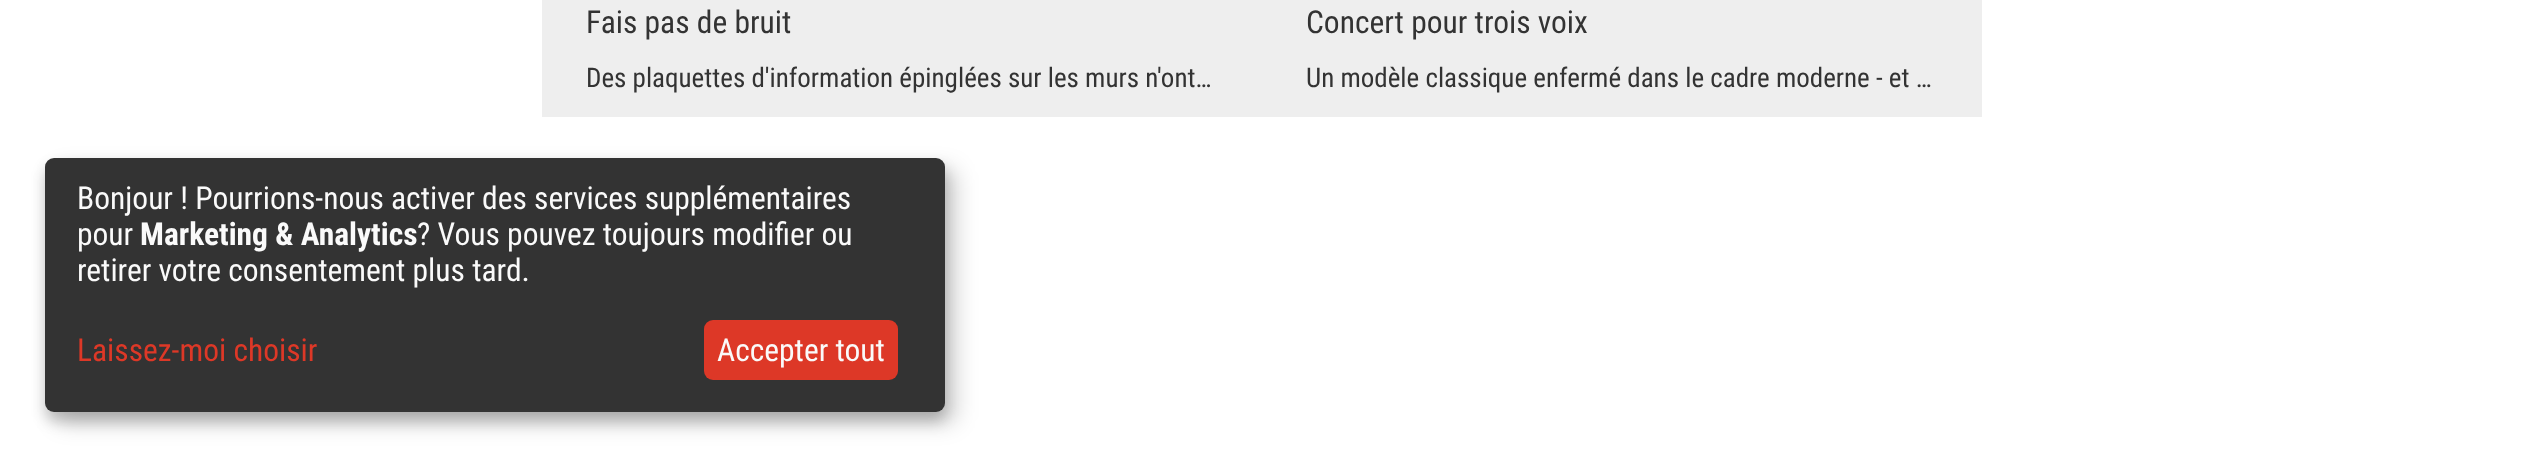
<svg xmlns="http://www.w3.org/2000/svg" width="2522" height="456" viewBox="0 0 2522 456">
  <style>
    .t1 { font: 31.5px Roboto Condensed; fill: #333; }
    .t2 { font: 27px Roboto Condensed; fill: #333; }
    .t3 { font: 31.5px Roboto Condensed; fill: #fafafa; }
    .t4 { font: bold 31.5px Roboto Condensed; fill: #fafafa; }
    .t5 { font: 31.5px Roboto Condensed; fill: #dd3827; }
  </style>
  <rect width="100%" height="100%" fill="#fff"/>
  <rect x="542" y="0" width="720" height="117" fill="#eee"/>
  <text x="586" y="33" class="t1">Fais pas de bruit</text>
  <text x="586" y="87" class="t2">Des plaquettes d'information épinglées sur les murs n'ont…</text>
  <rect x="1262" y="0" width="720" height="117" fill="#eee"/>
  <text x="1306" y="33" class="t1">Concert pour trois voix</text>
  <text x="1306" y="87" class="t2">Un modèle classique enfermé dans le cadre moderne - et …</text>
  <rect x="56" y="169" width="900" height="254" rx="9" fill="#00000030" filter="blur(11px)"/>
  <rect x="45" y="167" width="900" height="254" rx="9" fill="#00000033" filter="blur(7px)"/>
  <rect x="45" y="158" width="900" height="254" rx="9" fill="#333"/>
  <text x="77" y="209" class="t3">Bonjour ! Pourrions-nous activer des services supplémentaires</text>
  <text x="77" y="245" class="t3">pour</text>
  <text x="140" y="245" class="t4">Marketing &amp; Analytics</text>
  <text x="417" y="245" class="t3">? Vous pouvez toujours modifier ou</text>
  <text x="77" y="281" class="t3">retirer votre consentement plus tard.</text>
  <text x="77" y="361" class="t5">Laissez-moi choisir</text>
  <rect x="704" y="320" width="194" height="60" rx="9" fill="#dd3827"/>
  <text x="717" y="361" class="t3">Accepter tout</text>
</svg>
